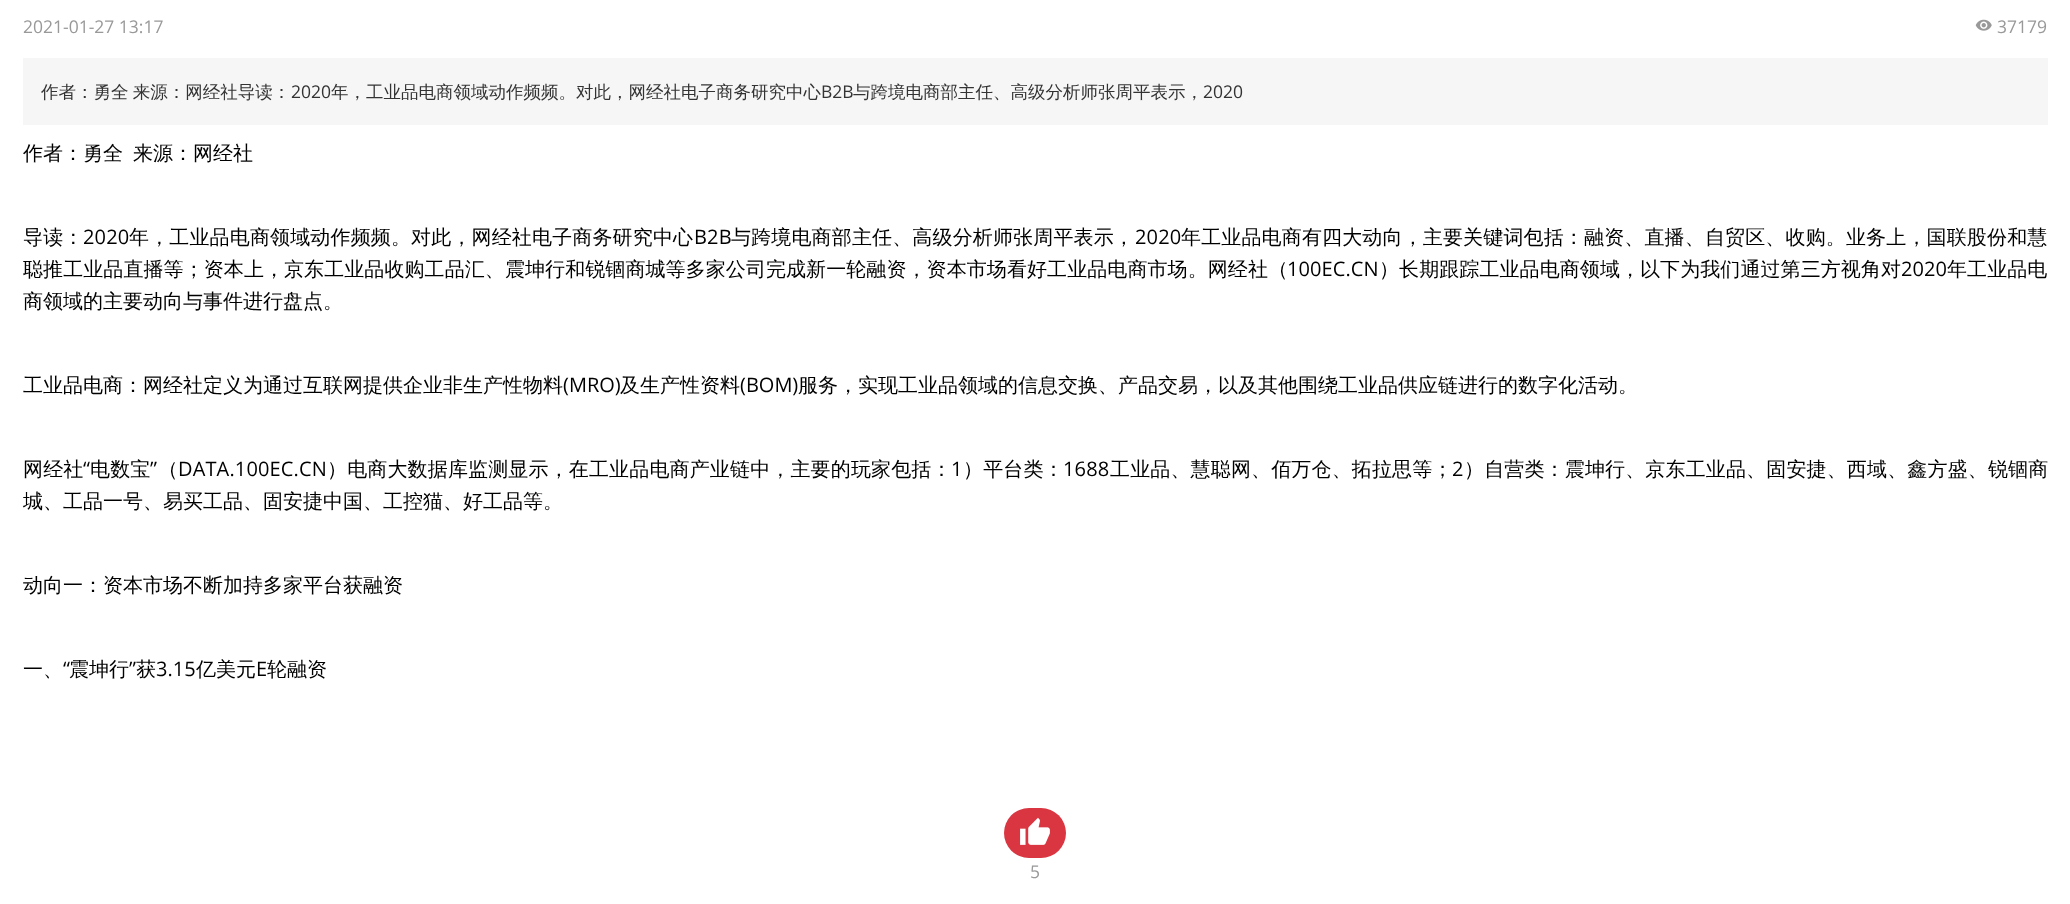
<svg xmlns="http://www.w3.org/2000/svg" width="2070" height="904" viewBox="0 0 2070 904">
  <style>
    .t1 { font: 17.5px Open Sans; fill: #999; }
    .t2 { font: 500 17.5px WenQuanYi Zen Hei; fill: #333; }
    .t3 { font: 17.5px Open Sans; fill: #333; }
    .t4 { font: 500 20px WenQuanYi Zen Hei; fill: #000; }
    .t5 { font: 500 20px WenQuanYi Zen Hei; letter-spacing: 0.15px; fill: #000; }
    .t6 { font: 20px Open Sans; letter-spacing: 0.15px; fill: #000; }
    .t7 { font: 500 20px WenQuanYi Zen Hei; letter-spacing: 0.08px; fill: #000; }
    .t8 { font: 20px Open Sans; letter-spacing: 0.08px; fill: #000; }
    .t9 { font: 20px Open Sans; fill: #000; }
  </style>
  <defs>
    <clipPath id="clip1"><rect x="23" y="125" width="2025" height="650"/></clipPath>
  </defs>
  <rect width="100%" height="100%" fill="#fff"/>
  <text x="23" y="33" class="t1">2021-01-27 13:17</text>
  <image x="1975" y="19" width="17" height="12" href="images/1.png"/>
  <text x="1997" y="33" class="t1">37179</text>
  <rect x="23" y="58" width="2025" height="67" fill="#f6f6f6"/>
  <text x="41" y="98" word-spacing="-1" class="t2">作者：勇全 来源：网经社导读：</text>
  <text x="291" y="98" class="t3">2020</text>
  <text x="331" y="98" class="t2">年，工业品电商领域动作频频。对此，网经社电子商务研究中心</text>
  <text x="821" y="98" class="t3">B2B</text>
  <text x="853" y="98" class="t2">与跨境电商部主任、高级分析师张周平表示，</text>
  <text x="1203" y="98" class="t3">2020</text>
  <text x="23" y="160" class="t4">作者：勇全</text>
  <text x="133" y="160" class="t4">来源：网经社</text>
  <text x="23" y="244" class="t5">导读：</text>
  <text x="83" y="244" class="t6">2020</text>
  <text x="129" y="244" class="t5">年，工业品电商领域动作频频。对此，网经社电子商务研究中心</text>
  <text x="694" y="244" class="t6">B2B</text>
  <text x="731" y="244" class="t5">与跨境电商部主任、高级分析师张周平表示，</text>
  <text x="1135" y="244" class="t6">2020</text>
  <text x="1181" y="244" class="t5">年工业品电商有四大动向，主要关键词包括：融资、直播、自贸区、收购。业务上，国联股份和慧</text>
  <g clip-path="url(#clip1)">
    <text x="23" y="276" class="t7">聪推工业品直播等；资本上，京东工业品收购工品汇、震坤行和锐锢商城等多家公司完成新一轮融资，资本市场看好工业品电商市场。网经社（</text>
  </g>
  <text x="1287" y="276" class="t8">100EC.CN</text>
  <text x="1379" y="276" class="t7">）长期跟踪工业品电商领域，以下为我们通过第三方视角对</text>
  <text x="1901" y="276" class="t8">2020</text>
  <text x="1947" y="276" class="t7">年工业品电</text>
  <text x="23" y="308" class="t4">商领域的主要动向与事件进行盘点。</text>
  <text x="23" y="392" class="t4">工业品电商：网经社定义为通过互联网提供企业非生产性物料</text>
  <text x="563" y="392" class="t9">(MRO)</text>
  <text x="620" y="392" class="t4">及生产性资料</text>
  <text x="740" y="392" class="t9">(BOM)</text>
  <text x="798" y="392" class="t4">服务，实现工业品领域的信息交换、产品交易，以及其他围绕工业品供应链进行的数字化活动。</text>
  <text x="23" y="476" class="t5">网经社</text>
  <text x="83" y="476" class="t6">“</text>
  <text x="90" y="476" class="t5">电数宝</text>
  <text x="150" y="476" class="t6">”</text>
  <text x="158" y="476" class="t5">（</text>
  <text x="178" y="476" class="t6">DATA.100EC.CN</text>
  <text x="327" y="476" class="t5">）电商大数据库监测显示，在工业品电商产业链中，主要的玩家包括：</text>
  <text x="951" y="476" class="t6">1</text>
  <text x="963" y="476" class="t5">）平台类：</text>
  <text x="1063" y="476" class="t6">1688</text>
  <text x="1110" y="476" class="t5">工业品、慧聪网、佰万仓、拓拉思等；</text>
  <text x="1452" y="476" class="t6">2</text>
  <text x="1464" y="476" class="t5">）自营类：震坤行、京东工业品、固安捷、西域、鑫方盛、锐锢商</text>
  <text x="23" y="508" class="t4">城、工品一号、易买工品、固安捷中国、工控猫、好工品等。</text>
  <text x="23" y="592" class="t4">动向一：资本市场不断加持多家平台获融资</text>
  <text x="23" y="676" class="t4">一、</text>
  <text x="63" y="676" class="t9">“</text>
  <text x="69" y="676" class="t4">震坤行</text>
  <text x="129" y="676" class="t9">”</text>
  <text x="136" y="676" class="t4">获</text>
  <text x="156" y="676" class="t9">3.15</text>
  <text x="196" y="676" class="t4">亿美元</text>
  <text x="256" y="676" class="t9">E</text>
  <text x="267" y="676" class="t4">轮融资</text>
  <rect x="1004" y="808" width="62" height="50" rx="25" fill="#d93641"/>
  <image x="1020" y="817" width="30" height="28" href="images/2.png"/>
  <text x="1030" y="878" class="t1">5</text>
</svg>
